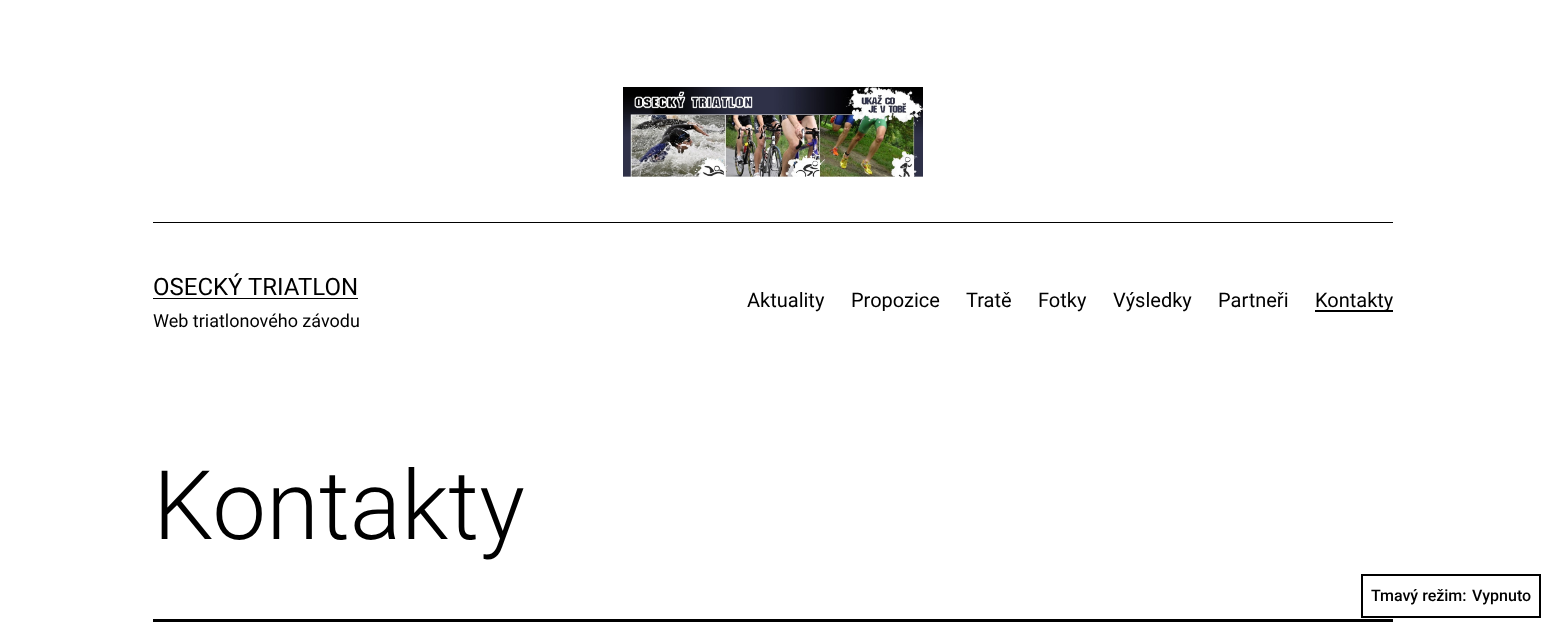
<svg xmlns="http://www.w3.org/2000/svg" width="1546" height="623" viewBox="0 0 1546 623">
  <style>
    .t1 { font: 24px Roboto; fill: #000; }
    .t2 { font: 18px Roboto; fill: #000; }
    .t3 { font: 20px Roboto; fill: #000; }
    .t4 { font: 300 96px Roboto; fill: #000; }
    .t5 { font: 500 16px Roboto; fill: #000; }
  </style>
  <rect width="100%" height="100%" fill="#fff"/>
  <rect x="153" y="222" width="1240" height="1" fill="#000"/>
  <image x="623" y="87" width="300" height="90" href="images/1.png"/>
  <text x="153" y="295" class="t1">OSECKÝ TRIATLON</text>
  <rect x="153" y="298" width="205" height="1" fill="#000"/>
  <text x="153" y="327" class="t2">Web triatlonového závodu</text>
  <text x="747" y="307" class="t3">Aktuality</text>
  <text x="851" y="307" class="t3">Propozice</text>
  <text x="966" y="307" class="t3">Tratě</text>
  <text x="1038" y="307" class="t3">Fotky</text>
  <text x="1113" y="307" class="t3">Výsledky</text>
  <text x="1218" y="307" class="t3">Partneři</text>
  <rect x="1315" y="310" width="78" height="2" fill="#000"/>
  <text x="1315" y="307" class="t3">Kontakty</text>
  <rect x="153" y="619" width="1240" height="3" fill="#000"/>
  <text x="153" y="539" class="t4">Kontakty</text>
  <rect x="1362" y="575" width="178" height="42" fill="none" stroke="#000" stroke-width="2"/>
  <text x="1371" y="601" class="t5">Tmavý režim:</text>
  <text x="1472" y="601" class="t5">Vypnuto</text>
</svg>
